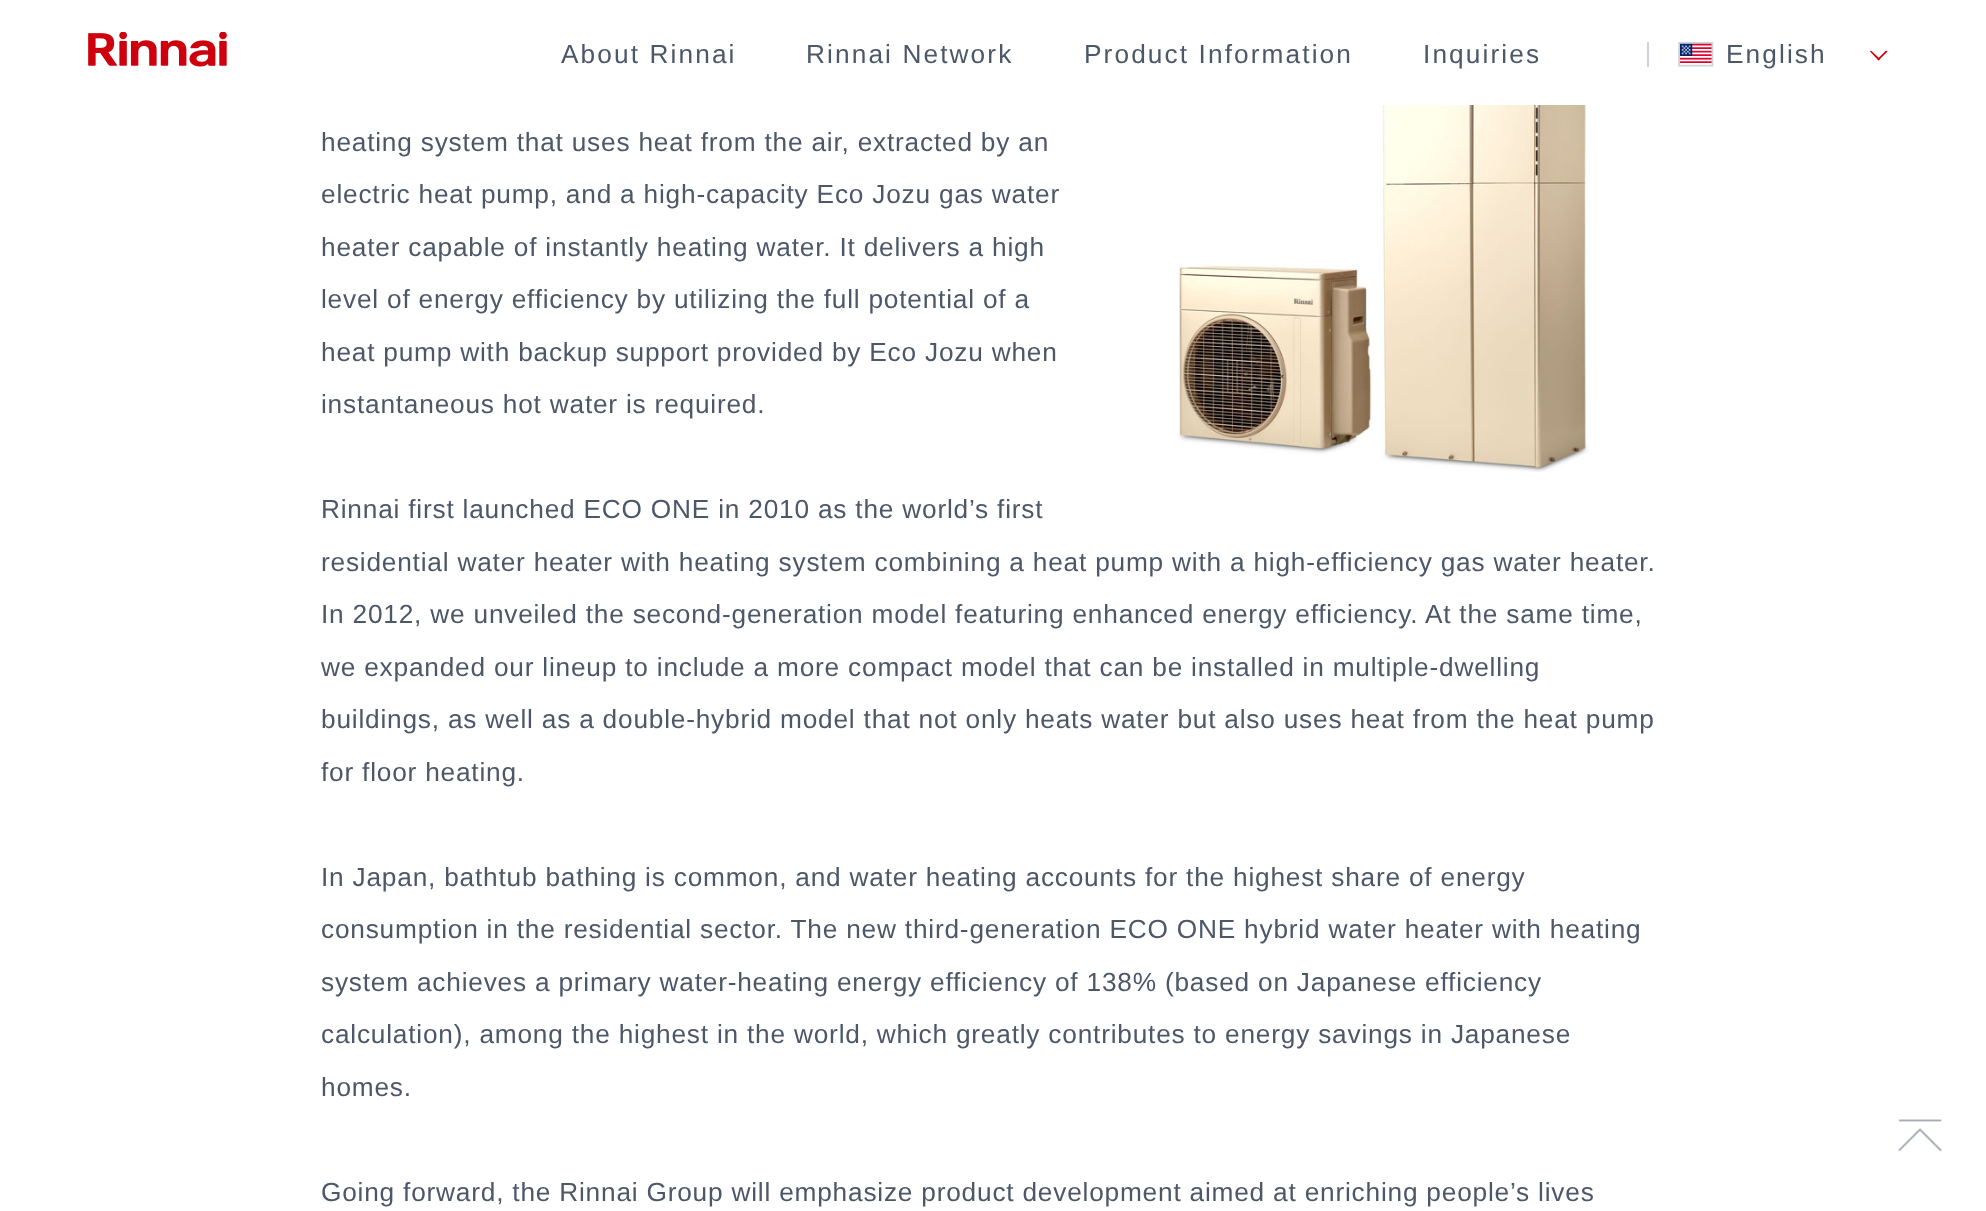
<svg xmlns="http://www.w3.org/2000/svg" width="1986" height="1211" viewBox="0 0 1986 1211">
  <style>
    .t1 { font: 26.25px Liberation Sans; letter-spacing: 2.1px; fill: #4c5768; }
    .t2 { font: 26.25px Liberation Sans; letter-spacing: 0.79px; fill: #4c5768; }
  </style>
  <rect width="100%" height="100%" fill="#fff"/>
  <image x="88" y="32" width="139" height="35" href="images/1.png"/>
  <text x="561" y="63" class="t1">About Rinnai</text>
  <text x="806" y="63" class="t1">Rinnai Network</text>
  <text x="1084" y="63" class="t1">Product Information</text>
  <text x="1423" y="63" class="t1">Inquiries</text>
  <rect x="1647" y="42" width="2" height="25" fill="#ced3d9"/>
  <image x="1678" y="42" width="36" height="25" href="images/2.png"/>
  <text x="1726" y="63" class="t1">English</text>
  <path d="M1886 50.5L1887.5 51.5L1878.5 60.5L1877.5 59Z" fill="#cf000e"/>
  <path d="M1871 50.5L1880 59L1878.5 60.5L1870 51.5Z" fill="#cf000e"/>
  <text x="321" y="151" class="t2">heating system that uses heat from the air, extracted by an</text>
  <text x="321" y="203" class="t2">electric heat pump, and a high-capacity Eco Jozu gas water</text>
  <text x="321" y="256" class="t2">heater capable of instantly heating water. It delivers a high</text>
  <text x="321" y="308" class="t2">level of energy efficiency by utilizing the full potential of a</text>
  <text x="321" y="361" class="t2">heat pump with backup support provided by Eco Jozu when</text>
  <text x="321" y="413" class="t2">instantaneous hot water is required.</text>
  <image x="1177" y="105" width="413" height="367" href="images/3.png"/>
  <text x="321" y="518" class="t2">Rinnai first launched ECO ONE in 2010 as the world’s first</text>
  <text x="321" y="571" class="t2">residential water heater with heating system combining a heat pump with a high-efficiency gas water heater.</text>
  <text x="321" y="623" class="t2">In 2012, we unveiled the second-generation model featuring enhanced energy efficiency. At the same time,</text>
  <text x="321" y="676" class="t2">we expanded our lineup to include a more compact model that can be installed in multiple-dwelling</text>
  <text x="321" y="728" class="t2">buildings, as well as a double-hybrid model that not only heats water but also uses heat from the heat pump</text>
  <text x="321" y="781" class="t2">for floor heating.</text>
  <text x="321" y="886" class="t2">In Japan, bathtub bathing is common, and water heating accounts for the highest share of energy</text>
  <text x="321" y="938" class="t2">consumption in the residential sector. The new third-generation ECO ONE hybrid water heater with heating</text>
  <text x="321" y="991" class="t2">system achieves a primary water-heating energy efficiency of 138% (based on Japanese efficiency</text>
  <text x="321" y="1043" class="t2">calculation), among the highest in the world, which greatly contributes to energy savings in Japanese</text>
  <text x="321" y="1096" class="t2">homes.</text>
  <text x="321" y="1201" class="t2">Going forward, the Rinnai Group will emphasize product development aimed at enriching people’s lives</text>
  <image x="1898" y="1119" width="44" height="33" href="images/4.png"/>
</svg>
